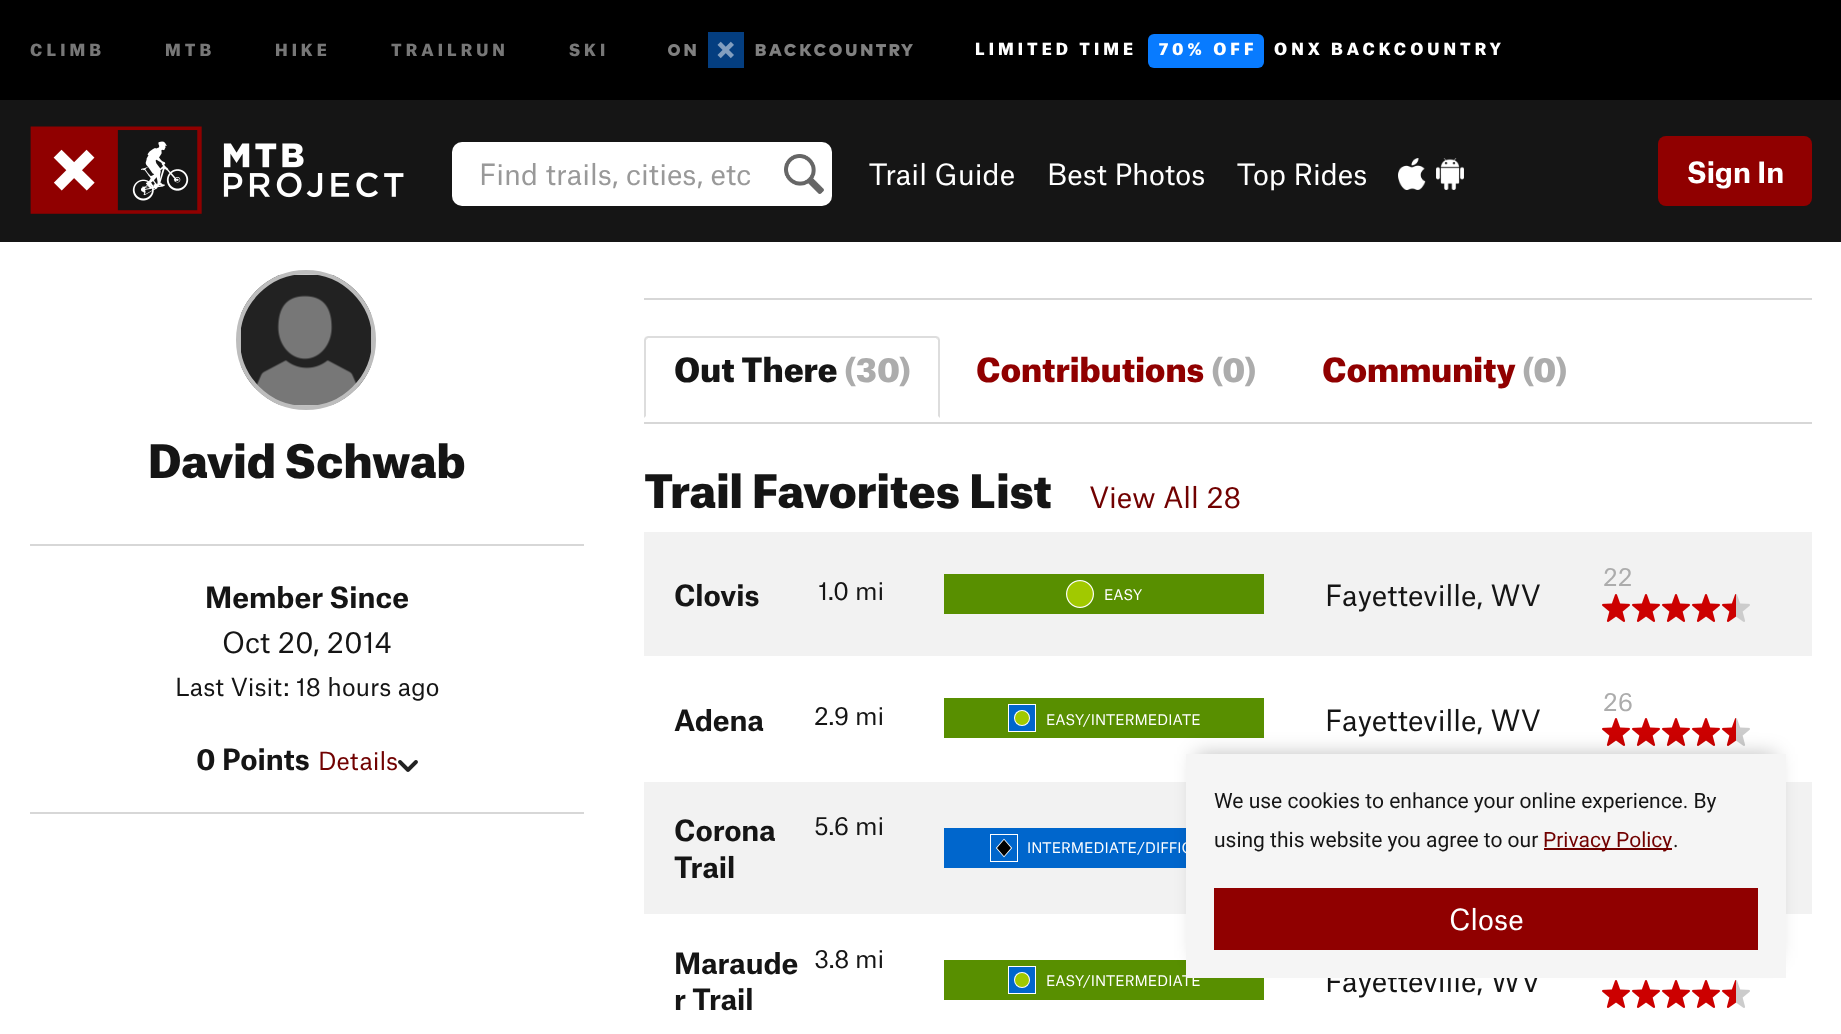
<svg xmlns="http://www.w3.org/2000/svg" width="1841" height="1034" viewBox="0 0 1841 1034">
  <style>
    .t1 { font: 900 16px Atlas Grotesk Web; letter-spacing: 4px; fill: #777; }
    .t2 { font: 900 16px Atlas Grotesk Web; letter-spacing: 4px; fill: #fff; }
    .t3 { font: 28px Atlas Grotesk Web; fill: #999; }
    .t4 { font: 28px Atlas Grotesk Web; fill: #fff; }
    .t5 { font: bold 28px Atlas Grotesk Web; fill: #fff; }
    .t6 { font: 900 44px Atlas Grotesk Web; fill: #151515; }
    .t7 { font: bold 28px Atlas Grotesk Web; fill: #151515; }
    .t8 { font: 28px Atlas Grotesk Web; fill: #151515; }
    .t9 { font: 24px Atlas Grotesk Web; fill: #151515; }
    .t10 { font: 24px Atlas Grotesk Web; fill: #710100; }
    .t11 { font: 900 32px Atlas Grotesk Web; fill: #151515; }
    .t12 { font: 900 32px Atlas Grotesk Web; fill: #acacac; }
    .t13 { font: 900 32px Atlas Grotesk Web; fill: #900000; }
    .t14 { font: 28px Atlas Grotesk Web; fill: #710100; }
    .t15 { font: 24px Atlas Grotesk Web; fill: #acacac; }
    .t16 { font: 14px Atlas Grotesk Web; fill: #fff; }
    .t17 { font: 21px Roboto; fill: #151515; }
    .t18 { font: 21px Roboto; fill: #710100; }
  </style>
  <rect width="100%" height="100%" fill="#fff"/>
  <rect x="0" y="100" width="1841" height="142" fill="#151515"/>
  <rect x="0" y="0" width="1841" height="100" fill="#000"/>
  <text x="30" y="56" class="t1">CLIMB</text>
  <text x="165" y="56" class="t1">MTB</text>
  <text x="275" y="56" class="t1">HIKE</text>
  <text x="391" y="56" class="t1">TRAILRUN</text>
  <text x="569" y="56" class="t1">SKI</text>
  <image x="668" y="32" width="245" height="36" href="images/1.png"/>
  <text x="975" y="55" class="t2">LIMITED TIME</text>
  <rect x="1148" y="34" width="116" height="34" rx="6" fill="#087bff"/>
  <text x="1159" y="55" class="t2">70% OFF</text>
  <text x="1274" y="55" class="t2">ONX BACKCOUNTRY</text>
  <image x="30" y="126" width="374" height="88" href="images/2.png"/>
  <rect x="452" y="142" width="380" height="64" rx="10" fill="#fff"/>
  <image x="784" y="154" width="40" height="40" href="images/3.png"/>
  <text x="479" y="185" class="t3">Find trails, cities, etc</text>
  <text x="869" y="185" class="t4">Trail Guide</text>
  <text x="1047" y="185" class="t4">Best Photos</text>
  <text x="1237" y="185" class="t4">Top Rides</text>
  <image x="1398" y="158" width="28" height="32" href="images/4.png"/>
  <image x="1436" y="158" width="28" height="32" href="images/5.png"/>
  <rect x="1658" y="136" width="154" height="70" rx="8" fill="#900000"/>
  <text x="1687" y="183" class="t5">Sign In</text>
  <image x="240" y="274" width="132" height="132" href="images/6.png"/>
  <circle cx="306" cy="340" r="68" fill="none" stroke="#bdbdbd" stroke-width="4"/>
  <text x="148" y="478" class="t6">David Schwab</text>
  <rect x="30" y="544" width="554" height="2" fill="#d7d7d7"/>
  <text x="205" y="608" class="t7">Member Since</text>
  <text x="222" y="653" class="t8">Oct 20, 2014</text>
  <text x="175" y="696" class="t9">Last Visit: 18 hours ago</text>
  <text x="196" y="770" class="t7">0 Points</text>
  <text x="318" y="770" class="t10">Details</text>
  <image x="398" y="760" width="20" height="12" href="images/7.png"/>
  <rect x="30" y="812" width="554" height="2" fill="#d7d7d7"/>
  <rect x="644" y="298" width="1168" height="2" fill="#d7d7d7"/>
  <rect x="644" y="422" width="1168" height="2" fill="#d7d7d7"/>
  <path d="M648 336L645 337L647 339L648 338H936L937 339L939 337L936 336Z" fill="#ddd"/>
  <path d="M940 418V340L939 337L937 339L938 340V416Z" fill="#ddd"/>
  <path d="M644 418L646 416V340L647 339L645 337L644 340Z" fill="#ddd"/>
  <text x="674" y="382" class="t11">Out There</text>
  <text x="844" y="382" class="t12">(30)</text>
  <text x="976" y="382" class="t13">Contributions</text>
  <text x="1211" y="382" class="t12">(0)</text>
  <text x="1322" y="382" class="t13">Community</text>
  <text x="1522" y="382" class="t12">(0)</text>
  <text x="644" y="508" class="t6">Trail Favorites List</text>
  <text x="1089" y="508" class="t14">View All 28</text>
  <rect x="644" y="532" width="1168" height="124" fill="#f2f2f2"/>
  <text x="1603" y="586" class="t15">22</text>
  <image x="1602" y="594" width="28" height="28" href="images/8.png"/>
  <image x="1632" y="594" width="28" height="28" href="images/8.png"/>
  <image x="1662" y="594" width="28" height="28" href="images/8.png"/>
  <image x="1692" y="594" width="28" height="28" href="images/8.png"/>
  <image x="1722" y="594" width="28" height="28" href="images/9.png"/>
  <text x="674" y="606" class="t7">Clovis</text>
  <text x="818" y="600" class="t9">1.0</text>
  <text x="855" y="600" class="t9">mi</text>
  <rect x="944" y="574" width="320" height="40" fill="#588f00"/>
  <image x="1066" y="580" width="28" height="28" href="images/10.png"/>
  <text x="1104" y="600" class="t16">EASY</text>
  <text x="1325" y="606" class="t8">Fayetteville, WV</text>
  <text x="1603" y="711" class="t15">26</text>
  <image x="1602" y="718" width="28" height="28" href="images/11.png"/>
  <image x="1632" y="718" width="28" height="28" href="images/11.png"/>
  <image x="1662" y="718" width="28" height="28" href="images/11.png"/>
  <image x="1692" y="718" width="28" height="28" href="images/11.png"/>
  <image x="1722" y="718" width="28" height="28" href="images/12.png"/>
  <text x="674" y="731" class="t7">Adena</text>
  <text x="814" y="725" class="t9">2.9</text>
  <text x="855" y="725" class="t9">mi</text>
  <rect x="944" y="698" width="320" height="40" fill="#588f00"/>
  <rect x="1008" y="704" width="28" height="28" fill="#fff"/>
  <rect x="1009" y="705" width="26" height="26" fill="#06c"/>
  <circle cx="1022" cy="718" r="8" fill="#fff"/>
  <circle cx="1022" cy="718" r="7" fill="#a1c900"/>
  <text x="1046" y="725" class="t16">EASY/INTERMEDIATE</text>
  <text x="1325" y="731" class="t8">Fayetteville, WV</text>
  <rect x="644" y="782" width="1168" height="132" fill="#f2f2f2"/>
  <text x="674" y="841" class="t7">Corona</text>
  <text x="814" y="835" class="t9">5.6</text>
  <text x="855" y="835" class="t9">mi</text>
  <text x="674" y="878" class="t7">Trail</text>
  <rect x="944" y="828" width="242" height="40" fill="#06c"/>
  <image x="990" y="834" width="28" height="28" href="images/13.png"/>
  <text x="1027" y="853" class="t16">INTERMEDIATE/DIFFIC</text>
  <text x="674" y="974" class="t7">Maraude</text>
  <text x="814" y="968" class="t9">3.8</text>
  <text x="855" y="968" class="t9">mi</text>
  <text x="674" y="1010" class="t7">r Trail</text>
  <rect x="944" y="960" width="320" height="40" fill="#588f00"/>
  <rect x="1008" y="966" width="28" height="28" fill="#fff"/>
  <rect x="1009" y="967" width="26" height="26" fill="#06c"/>
  <circle cx="1022" cy="980" r="8" fill="#fff"/>
  <circle cx="1022" cy="980" r="7" fill="#a1c900"/>
  <text x="1046" y="986" class="t16">EASY/INTERMEDIATE</text>
  <text x="1325" y="992" class="t8">Fayetteville, WV</text>
  <image x="1602" y="980" width="28" height="28" href="images/11.png"/>
  <image x="1632" y="980" width="28" height="28" href="images/11.png"/>
  <image x="1662" y="980" width="28" height="28" href="images/11.png"/>
  <image x="1692" y="980" width="28" height="28" href="images/11.png"/>
  <image x="1722" y="980" width="28" height="28" href="images/12.png"/>
  <rect x="1196" y="754" width="580" height="204" fill="#00000040" filter="blur(10px)"/>
  <rect x="1186" y="754" width="600" height="224" fill="#f5f5f5"/>
  <text x="1214" y="808" class="t17">We use cookies to enhance your online experience. By</text>
  <text x="1214" y="847" class="t17">using this website you agree to our</text>
  <rect x="1544" y="848" width="128" height="2" fill="#710100"/>
  <text x="1543" y="847" class="t18">Privacy Policy</text>
  <text x="1673" y="847" class="t17">.</text>
  <rect x="1214" y="888" width="544" height="62" fill="#900000"/>
  <text x="1449" y="930" class="t4">Close</text>
</svg>
